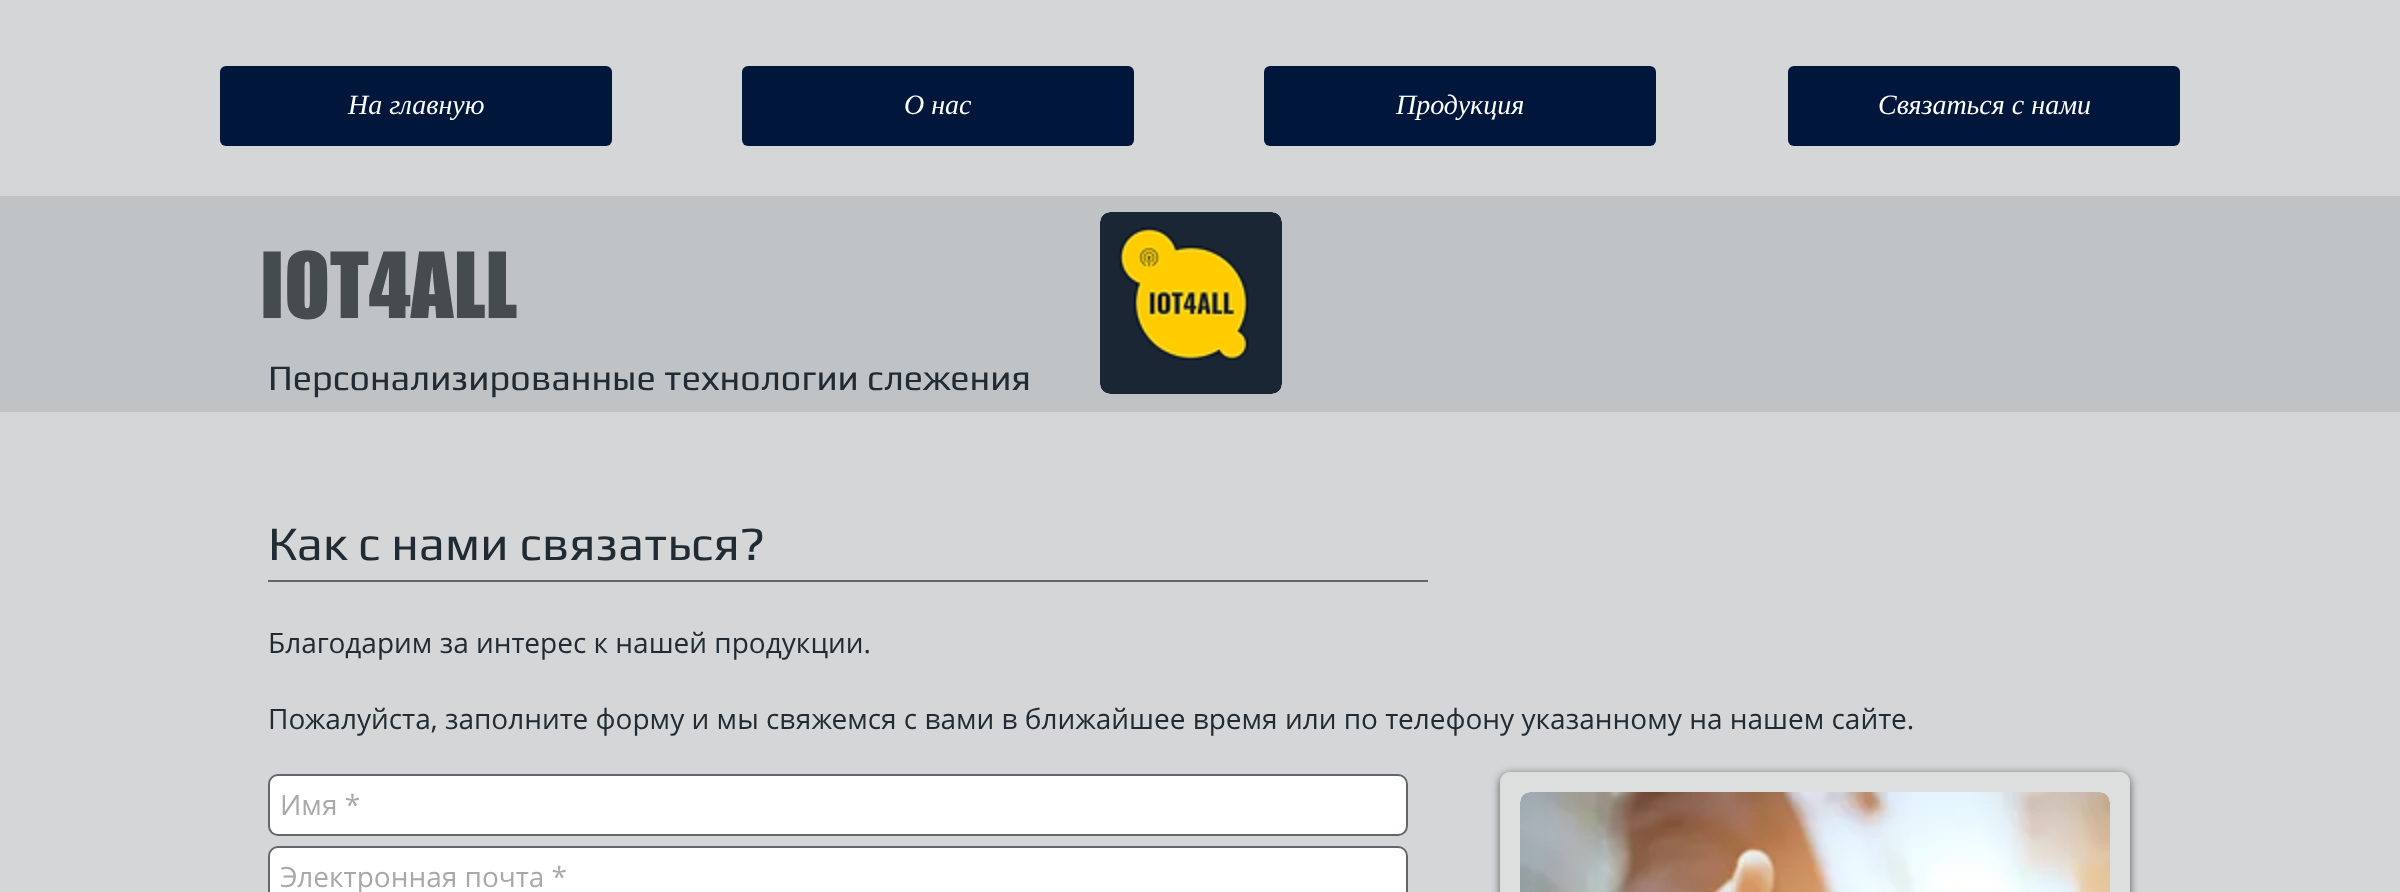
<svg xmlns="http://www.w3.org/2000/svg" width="2400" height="892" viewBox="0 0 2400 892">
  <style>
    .t1 { font: italic 28px Liberation Serif; fill: #fff; }
    .t2 { font: 36px Play; fill: #202b33; }
    .t3 { font: 48px Play; fill: #202b33; }
    .t4 { font: 28px Open Sans; fill: #202b33; }
    .t5 { font: 28px Open Sans; fill: #a9a9a9; }
    .t6 { font: 84px 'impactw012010'; fill: #464b4e; }
  </style>
  <defs>
    <clipPath id="clip1"><path d="M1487 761H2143V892H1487ZM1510 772H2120C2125.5 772 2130 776.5 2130 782V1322C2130 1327.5 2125.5 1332 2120 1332H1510C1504.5 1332 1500 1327.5 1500 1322V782C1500 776.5 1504.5 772 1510 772Z" clip-rule="evenodd"/></clipPath>
  </defs>
  <rect width="100%" height="100%" fill="#d4d6d7"/>
  <rect x="220" y="66" width="392" height="80" rx="6" fill="#01163b"/>
  <text x="348" y="114" class="t1">На главную</text>
  <rect x="742" y="66" width="392" height="80" rx="6" fill="#01163b"/>
  <text x="904" y="114" class="t1">О нас</text>
  <rect x="1264" y="66" width="392" height="80" rx="6" fill="#01163b"/>
  <text x="1396" y="114" class="t1">Продукция</text>
  <rect x="1788" y="66" width="392" height="80" rx="6" fill="#01163b"/>
  <text x="1878" y="114" class="t1">Связаться с нами</text>
  <rect x="0" y="196" width="2400" height="216" fill="#c0c3c5"/>
  <text x="268" y="390" class="t2">Персонализированные технологии слежения</text>
  <text x="268" y="560" class="t3">Как с нами связаться?</text>
  <rect x="268" y="580" width="1160" height="2" fill="#636769"/>
  <text x="268" y="653" class="t4">Благодарим за интерес к нашей продукции.</text>
  <text x="268" y="729" class="t4">Пожалуйста, заполните форму и мы свяжемся с вами в ближайшее время или по телефону указанному на нашем сайте.</text>
  <rect x="269" y="775" width="1138" height="60" rx="9" fill="#fff" stroke="#636769" stroke-width="2"/>
  <text x="280" y="815" class="t5">Имя *</text>
  <rect x="269" y="847" width="1138" height="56" rx="9" fill="#fff" stroke="#636769" stroke-width="2"/>
  <text x="280" y="887" class="t5">Электронная почта *</text>
  <g clip-path="url(#clip1)">
    <rect x="1500" y="774" width="630" height="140" rx="10" fill="#00000099" filter="blur(4px)"/>
  </g>
  <rect x="1500" y="772" width="630" height="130" rx="10" fill="#ffffff38"/>
  <rect x="1520" y="792" width="590" height="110" rx="10" fill="#fff"/>
  <image x="1520" y="792" width="590" height="100" href="images/1.png"/>
  <text x="260" y="318" class="t6">IOT4ALL</text>
  <rect x="1100" y="212" width="182" height="182" rx="10" fill="#fff"/>
  <image x="1100" y="212" width="182" height="182" href="images/2.png"/>
</svg>
